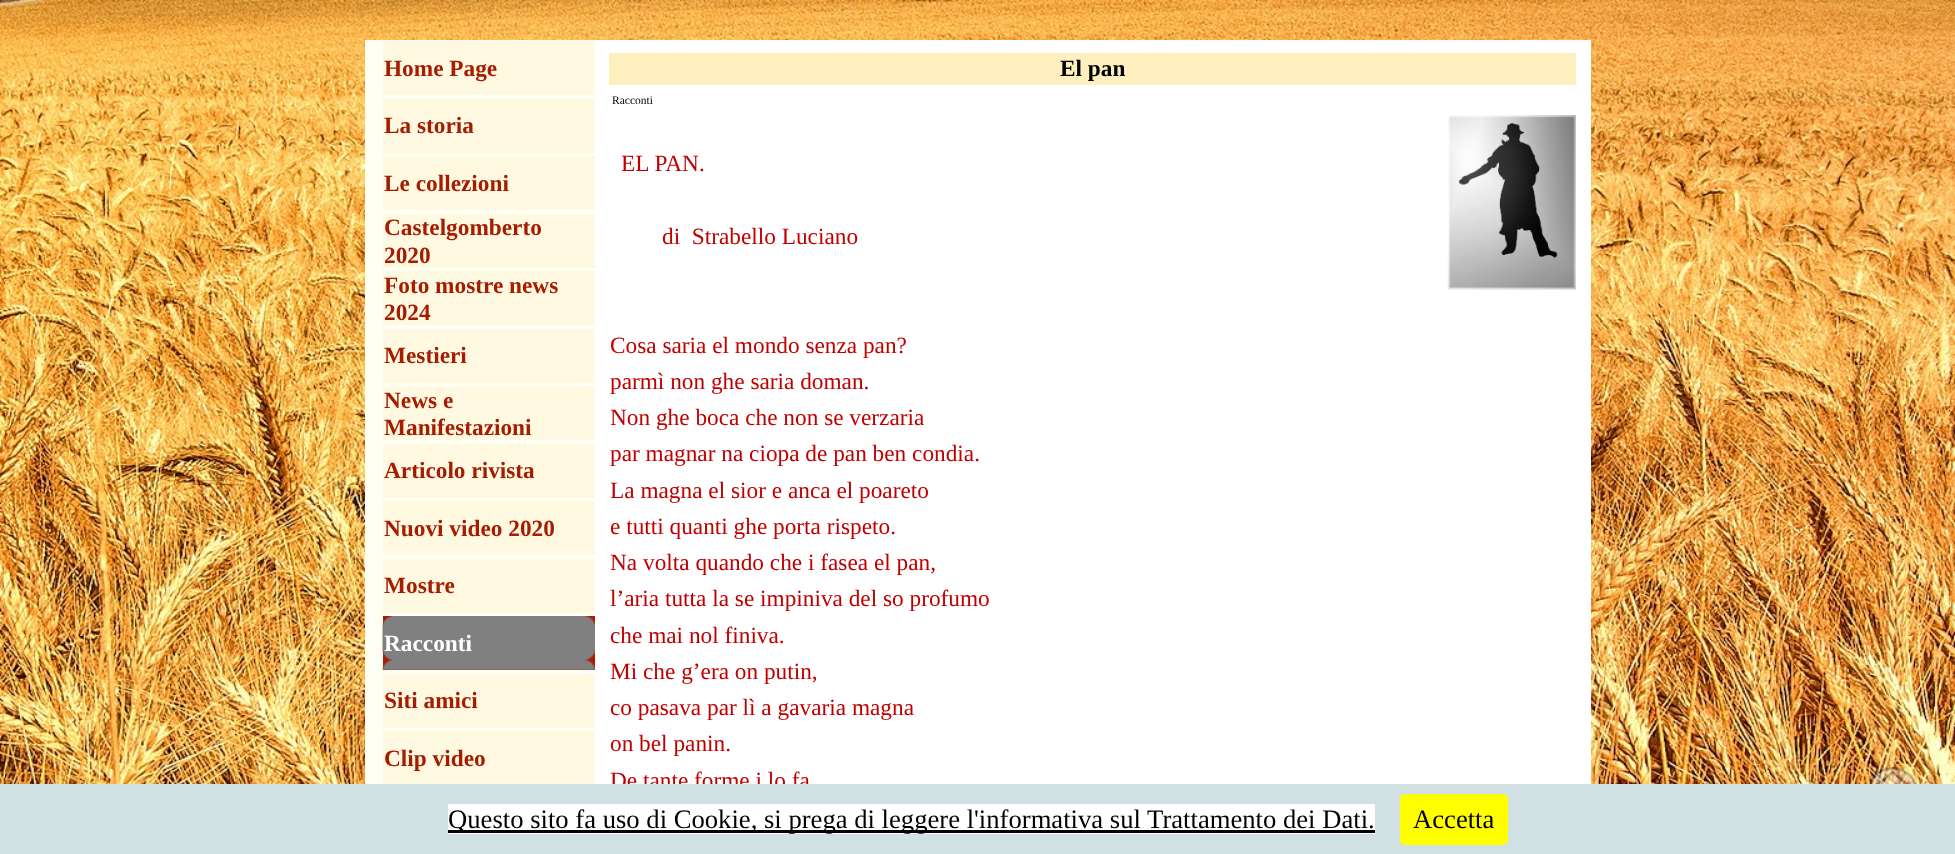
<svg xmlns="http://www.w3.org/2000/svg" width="1955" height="854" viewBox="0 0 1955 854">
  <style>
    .t1 { font: bold 23.3px Liberation Serif; fill: #a61c00; }
    .t2 { font: bold 23.3px Liberation Serif; fill: #fff; }
    .t3 { font: bold 23.3px Liberation Serif; fill: #000; }
    .t4 { font: 11.5px Liberation Serif; fill: #000; }
    .t5 { font: 23.3px Liberation Serif; fill: #c00000; }
    .t6 { font: 26.65px Liberation Serif; fill: #000; }
  </style>
  <rect width="100%" height="100%" fill="#fff"/>
  <image x="0" y="0" width="1955" height="784" href="images/1.png"/>
  <rect x="590" y="40" width="1001" height="744" fill="#fff"/>
  <rect x="365" y="40" width="225" height="744" fill="#fffff4"/>
  <rect x="383" y="41" width="212" height="54" fill="#fff9e1"/>
  <text x="384" y="76" class="t1">Home Page</text>
  <rect x="383" y="99" width="212" height="54" fill="#fff9e1"/>
  <text x="384" y="133" class="t1">La storia</text>
  <rect x="383" y="156" width="212" height="54" fill="#fff9e1"/>
  <text x="384" y="191" class="t1">Le collezioni</text>
  <rect x="383" y="214" width="212" height="54" fill="#fff9e1"/>
  <text x="384" y="235" class="t1">Castelgomberto</text>
  <text x="384" y="263" class="t1">2020</text>
  <rect x="383" y="271" width="212" height="54" fill="#fff9e1"/>
  <text x="384" y="293" class="t1">Foto mostre news</text>
  <text x="384" y="320" class="t1">2024</text>
  <rect x="383" y="329" width="212" height="54" fill="#fff9e1"/>
  <text x="384" y="363" class="t1">Mestieri</text>
  <rect x="383" y="386" width="212" height="54" fill="#fff9e1"/>
  <text x="384" y="408" class="t1">News e</text>
  <text x="384" y="435" class="t1">Manifestazioni</text>
  <rect x="383" y="444" width="212" height="54" fill="#fff9e1"/>
  <text x="384" y="478" class="t1">Articolo rivista</text>
  <rect x="383" y="501" width="212" height="54" fill="#fff9e1"/>
  <text x="384" y="536" class="t1">Nuovi video 2020</text>
  <rect x="383" y="559" width="212" height="54" fill="#fff9e1"/>
  <text x="384" y="593" class="t1">Mostre</text>
  <rect x="383" y="616" width="212" height="54" fill="#a61c00"/>
  <image x="382" y="616" width="213" height="54" href="images/2.png"/>
  <text x="384" y="651" class="t2">Racconti</text>
  <rect x="383" y="674" width="212" height="54" fill="#fff9e1"/>
  <text x="384" y="708" class="t1">Siti amici</text>
  <rect x="383" y="731" width="212" height="53" fill="#fff9e1"/>
  <text x="384" y="766" class="t1">Clip video</text>
  <rect x="609" y="53" width="967" height="32" fill="#ffefbf"/>
  <text x="1060" y="76" class="t3">El pan</text>
  <text x="612" y="104" class="t4">Racconti</text>
  <text x="621" y="171" class="t5">EL PAN.</text>
  <text x="662" y="244" class="t5" xml:space="preserve">di  Strabello Luciano</text>
  <text x="610" y="353" class="t5">Cosa saria el mondo senza pan?</text>
  <text x="610" y="389" class="t5">parmì non ghe saria doman.</text>
  <text x="610" y="425" class="t5">Non ghe boca che non se verzaria</text>
  <text x="610" y="461" class="t5">par magnar na ciopa de pan ben condia.</text>
  <text x="610" y="498" class="t5">La magna el sior e anca el poareto</text>
  <text x="610" y="534" class="t5">e tutti quanti ghe porta rispeto.</text>
  <text x="610" y="570" class="t5">Na volta quando che i fasea el pan,</text>
  <text x="610" y="606" class="t5">l’aria tutta la se impiniva del so profumo</text>
  <text x="610" y="643" class="t5">che mai nol finiva.</text>
  <text x="610" y="679" class="t5">Mi che g’era on putin,</text>
  <text x="610" y="715" class="t5">co pasava par lì a gavaria magna</text>
  <text x="610" y="751" class="t5">on bel panin.</text>
  <text x="610" y="788" class="t5">De tante forme i lo fa</text>
  <image x="1447" y="115" width="129" height="175" href="images/3.png"/>
  <image x="1868" y="767" width="49" height="17" href="images/4.png"/>
  <rect x="0" y="784" width="1955" height="70" fill="#d0e0e3"/>
  <rect x="448" y="804" width="927" height="30" fill="#fff"/>
  <rect x="448" y="830" width="927" height="3" fill="#000"/>
  <text x="448" y="828" class="t6">Questo sito fa uso di Cookie, si prega di leggere l'informativa sul Trattamento dei Dati.</text>
  <rect x="1400" y="794" width="108" height="51" rx="5" fill="#ff0"/>
  <text x="1413" y="828" class="t6">Accetta</text>
</svg>
